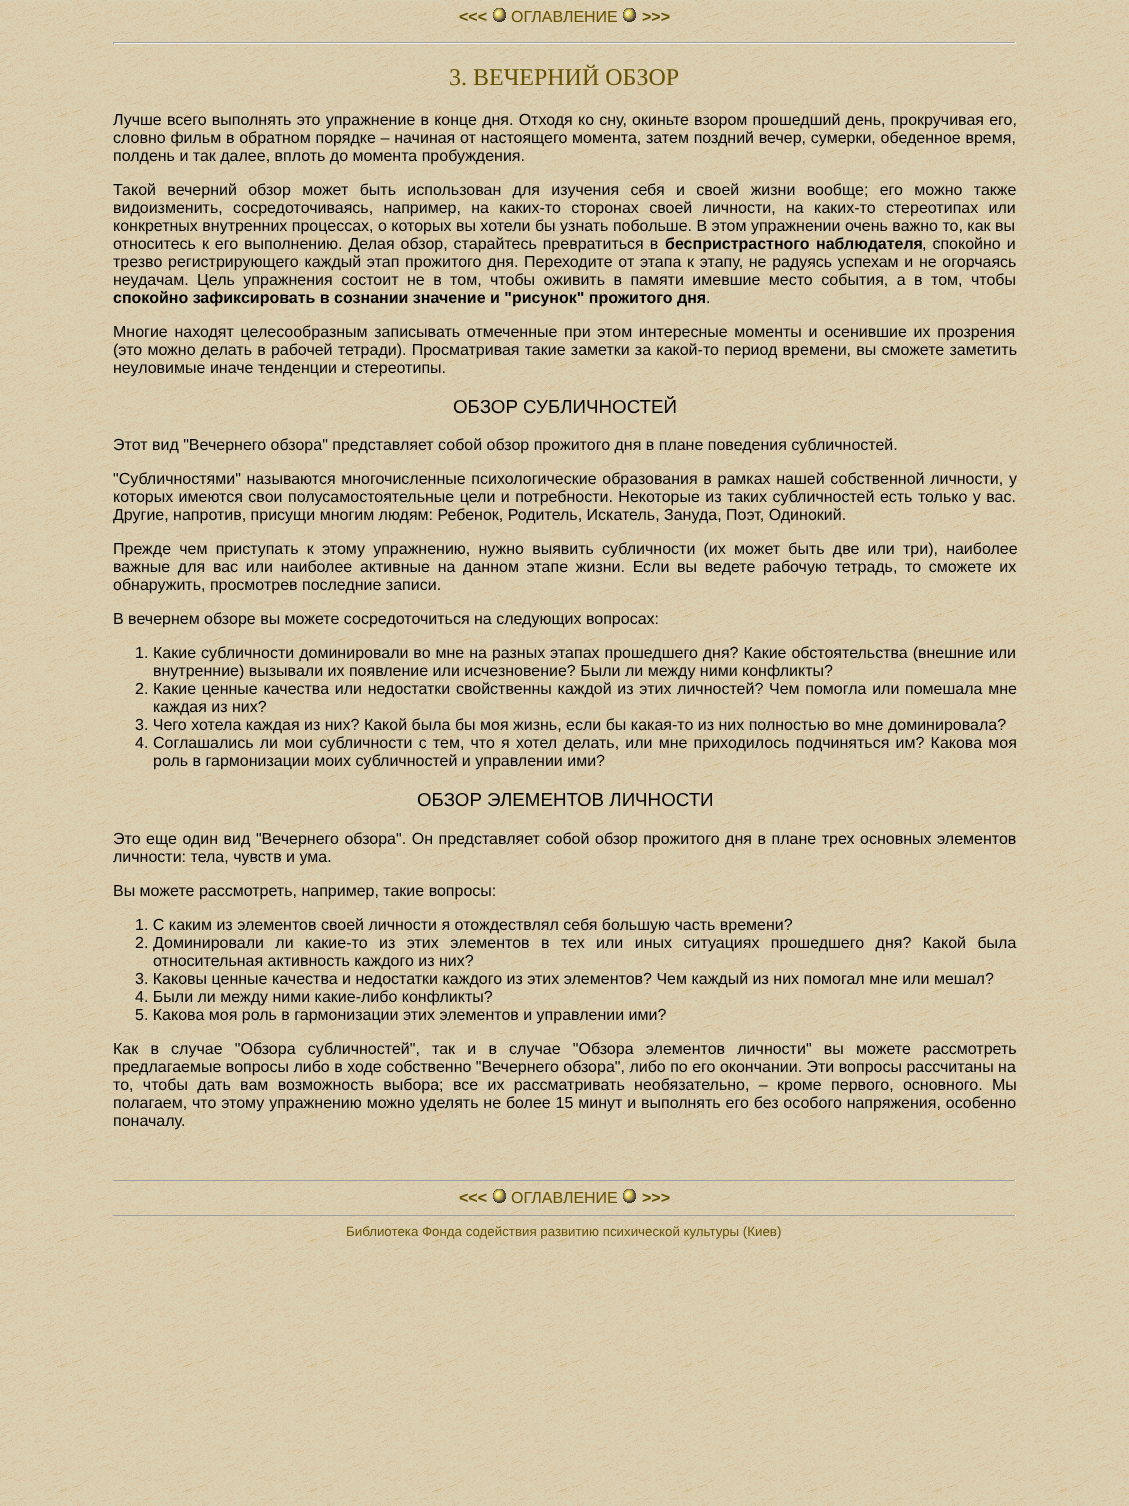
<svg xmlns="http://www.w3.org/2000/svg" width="1129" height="1506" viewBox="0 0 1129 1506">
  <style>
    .t1 { font: bold 16px Liberation Sans; fill: #645000; }
    .t2 { font: 16px Liberation Sans; fill: #645000; }
    .t3 { font: 24px Liberation Serif; fill: #645000; }
    .t4 { font: 16px Liberation Sans; fill: #000; }
    .t5 { font: bold 16px Liberation Sans; fill: #000; }
    .t6 { font: 18.75px Liberation Sans; fill: #000; }
    .t7 { font: 13.3px Liberation Sans; fill: #645000; }
  </style>
  <rect width="100%" height="100%" fill="#fff"/>
  <image x="0" y="0" width="1129" height="1506" href="images/1.png"/>
  <text x="459" y="22" class="t1">&lt;&lt;&lt;</text>
  <image x="493" y="8" width="13" height="14" href="images/2.png"/>
  <text x="511" y="22" class="t2">ОГЛАВЛЕHИЕ</text>
  <image x="623" y="8" width="13" height="14" href="images/3.png"/>
  <text x="642" y="22" class="t1">&gt;&gt;&gt;</text>
  <rect x="113" y="42" width="903" height="1" fill="#9f9f9f"/>
  <rect x="1015" y="42" width="1" height="2" fill="#eee"/>
  <rect x="113" y="43" width="903" height="1" fill="#eee"/>
  <rect x="113" y="42" width="1" height="2" fill="#9f9f9f"/>
  <text x="449" y="85" class="t3">3. ВЕЧЕРНИЙ ОБЗОР</text>
  <text x="113" y="125" word-spacing="0.75" class="t4">Лучше всего выполнять это упражнение в конце дня. Отходя ко сну, окиньте взором прошедший день, прокручивая его,</text>
  <text x="113" y="143" word-spacing="0.3" class="t4">словно фильм в обратном порядке – начиная от настоящего момента, затем поздний вечер, сумерки, обеденное время,</text>
  <text x="113" y="161" class="t4">полдень и так далее, вплоть до момента пробуждения.</text>
  <text x="113" y="195" word-spacing="6.9" class="t4">Такой вечерний обзор может быть использован для изучения себя и своей жизни вообще; его можно также</text>
  <text x="113" y="213" word-spacing="5.9" class="t4">видоизменить, сосредоточиваясь, например, на каких-то сторонах своей личности, на каких-то стереотипах или</text>
  <text x="113" y="231" class="t4">конкретных внутренних процессах, о которых вы хотели бы узнать побольше. В этом упражнении очень важно то, как вы</text>
  <text x="113" y="249" word-spacing="1.5" class="t4">относитесь к его выполнению. Делая обзор, старайтесь превратиться в</text>
  <text x="665" y="249" word-spacing="2" class="t5">беспристрастного наблюдателя</text>
  <text x="922" y="249" word-spacing="1.5" class="t4">, спокойно и</text>
  <text x="113" y="267" word-spacing="1.25" class="t4">трезво регистрирующего каждый этап прожитого дня. Переходите от этапа к этапу, не радуясь успехам и не огорчаясь</text>
  <text x="113" y="285" word-spacing="4" class="t4">неудачам. Цель упражнения состоит не в том, чтобы оживить в памяти имевшие место события, а в том, чтобы</text>
  <text x="113" y="303" class="t5">спокойно зафиксировать в сознании значение и "рисунок" прожитого дня</text>
  <text x="706" y="303" class="t4">.</text>
  <text x="113" y="337" word-spacing="2.25" class="t4">Многие находят целесообразным записывать отмеченные при этом интересные моменты и осенившие их прозрения</text>
  <text x="113" y="355" word-spacing="0.75" class="t4">(это можно делать в рабочей тетради). Просматривая такие заметки за какой-то период времени, вы сможете заметить</text>
  <text x="113" y="373" class="t4">неуловимые иначе тенденции и стереотипы.</text>
  <text x="453" y="413" class="t6">ОБЗОР СУБЛИЧНОСТЕЙ</text>
  <text x="113" y="450" class="t4">Этот вид "Вечернего обзора" представляет собой обзор прожитого дня в плане поведения субличностей.</text>
  <text x="113" y="484" word-spacing="1.25" class="t4">"Субличностями" называются многочисленные психологические образования в рамках нашей собственной личности, у</text>
  <text x="113" y="502" word-spacing="1" class="t4">которых имеются свои полусамостоятельные цели и потребности. Некоторые из таких субличностей есть только у вас.</text>
  <text x="113" y="520" class="t4">Другие, напротив, присущи многим людям: Ребенок, Родитель, Искатель, Зануда, Поэт, Одинокий.</text>
  <text x="113" y="554" word-spacing="3.75" class="t4">Прежде чем приступать к этому упражнению, нужно выявить субличности (их может быть две или три), наиболее</text>
  <text x="113" y="572" word-spacing="3.25" class="t4">важные для вас или наиболее активные на данном этапе жизни. Если вы ведете рабочую тетрадь, то сможете их</text>
  <text x="113" y="590" class="t4">обнаружить, просмотрев последние записи.</text>
  <text x="113" y="624" class="t4">В вечернем обзоре вы можете сосредоточиться на следующих вопросах:</text>
  <text x="135" y="658" class="t4">1.</text>
  <text x="153" y="658" word-spacing="0.5" class="t4">Какие субличности доминировали во мне на разных этапах прошедшего дня? Какие обстоятельства (внешние или</text>
  <text x="153" y="676" class="t4">внутренние) вызывали их появление или исчезновение? Были ли между ними конфликты?</text>
  <text x="135" y="694" class="t4">2.</text>
  <text x="153" y="694" word-spacing="1.25" class="t4">Какие ценные качества или недостатки свойственны каждой из этих личностей? Чем помогла или помешала мне</text>
  <text x="153" y="712" class="t4">каждая из них?</text>
  <text x="135" y="730" class="t4">3. Чего хотела каждая из них? Какой была бы моя жизнь, если бы какая-то из них полностью во мне доминировала?</text>
  <text x="135" y="748" class="t4">4.</text>
  <text x="153" y="748" word-spacing="1.75" class="t4">Соглашались ли мои субличности с тем, что я хотел делать, или мне приходилось подчиняться им? Какова моя</text>
  <text x="153" y="766" class="t4">роль в гармонизации моих субличностей и управлении ими?</text>
  <text x="417" y="806" class="t6">ОБЗОР ЭЛЕМЕНТОВ ЛИЧНОСТИ</text>
  <text x="113" y="844" word-spacing="1.1" class="t4">Это еще один вид "Вечернего обзора". Он представляет собой обзор прожитого дня в плане трех основных элементов</text>
  <text x="113" y="862" class="t4">личности: тела, чувств и ума.</text>
  <text x="113" y="896" class="t4">Вы можете рассмотреть, например, такие вопросы:</text>
  <text x="135" y="930" class="t4">1. С каким из элементов своей личности я отождествлял себя большую часть времени?</text>
  <text x="135" y="948" class="t4">2.</text>
  <text x="153" y="948" word-spacing="7" class="t4">Доминировали ли какие-то из этих элементов в тех или иных ситуациях прошедшего дня? Какой была</text>
  <text x="153" y="966" class="t4">относительная активность каждого из них?</text>
  <text x="135" y="984" class="t4">3. Каковы ценные качества и недостатки каждого из этих элементов? Чем каждый из них помогал мне или мешал?</text>
  <text x="135" y="1002" class="t4">4. Были ли между ними какие-либо конфликты?</text>
  <text x="135" y="1020" class="t4">5. Какова моя роль в гармонизации этих элементов и управлении ими?</text>
  <text x="113" y="1054" word-spacing="7.75" class="t4">Как в случае "Обзора субличностей", так и в случае "Обзора элементов личности" вы можете рассмотреть</text>
  <text x="113" y="1072" class="t4">предлагаемые вопросы либо в ходе собственно "Вечернего обзора", либо по его окончании. Эти вопросы рассчитаны на</text>
  <text x="113" y="1090" word-spacing="4.9" class="t4">то, чтобы дать вам возможность выбора; все их рассматривать необязательно, – кроме первого, основного. Мы</text>
  <text x="113" y="1108" word-spacing="0.4" class="t4">полагаем, что этому упражнению можно уделять не более 15 минут и выполнять его без особого напряжения, особенно</text>
  <text x="113" y="1126" class="t4">поначалу.</text>
  <rect x="113" y="1180" width="903" height="1" fill="#9f9f9f"/>
  <rect x="1015" y="1180" width="1" height="1" fill="#eee"/>
  <text x="459" y="1203" class="t1">&lt;&lt;&lt;</text>
  <image x="493" y="1189" width="13" height="14" href="images/4.png"/>
  <text x="511" y="1203" class="t2">ОГЛАВЛЕHИЕ</text>
  <image x="623" y="1189" width="13" height="14" href="images/5.png"/>
  <text x="642" y="1203" class="t1">&gt;&gt;&gt;</text>
  <rect x="113" y="1215" width="903" height="1" fill="#9f9f9f"/>
  <rect x="1015" y="1215" width="1" height="1" fill="#eee"/>
  <text x="346" y="1236" class="t7">Библиотека Фонда содействия развитию психической культуры (Киев)</text>
</svg>
